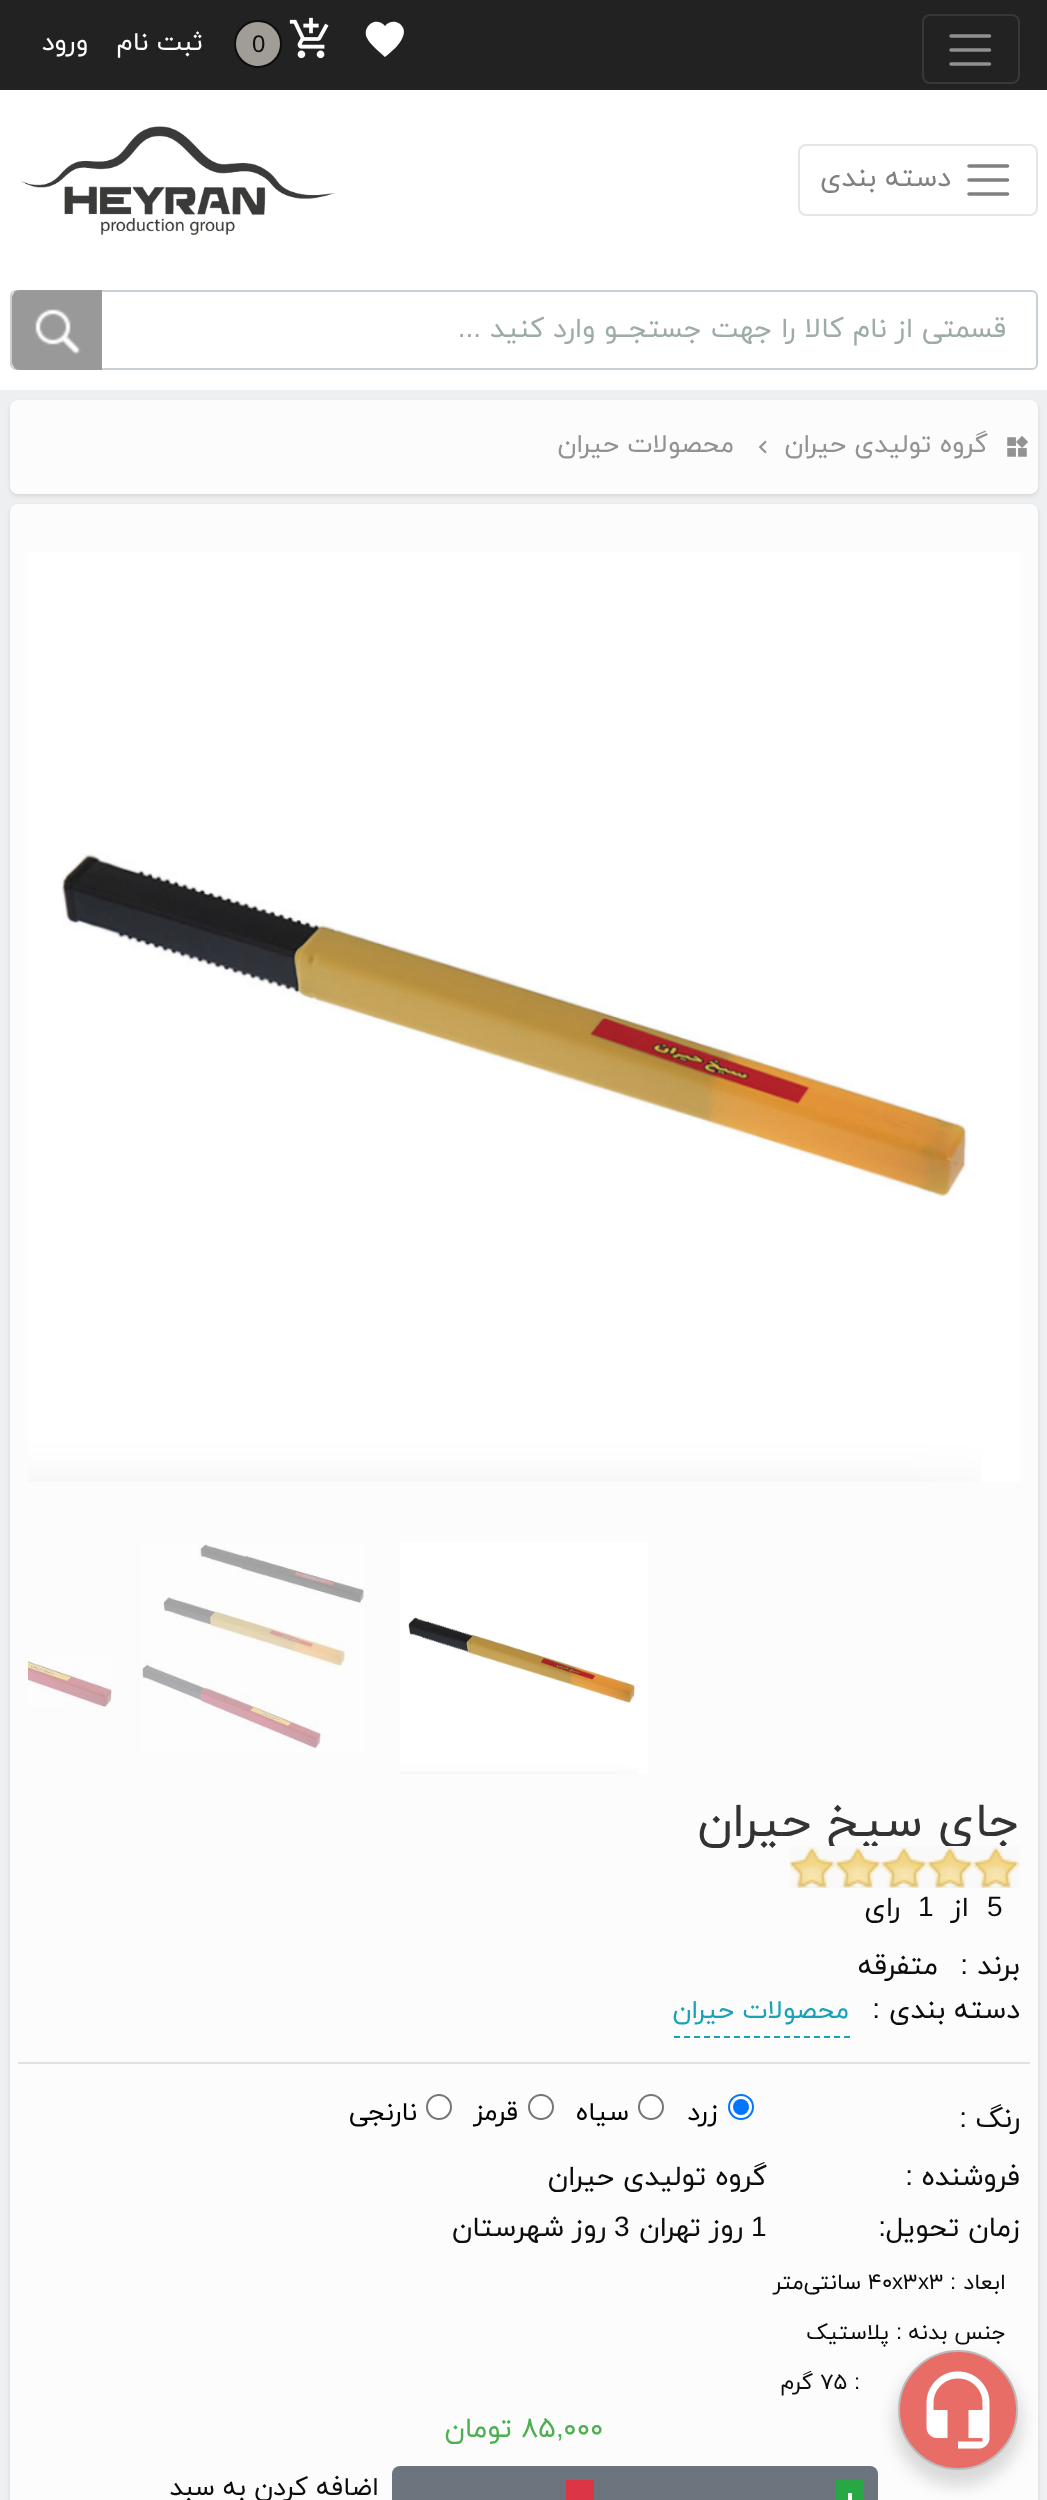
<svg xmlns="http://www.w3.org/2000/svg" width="1047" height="2500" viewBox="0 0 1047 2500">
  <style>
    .t1 { font: 24px Liberation Sans; fill: #0d0c0c; }
    .t2 { font: 26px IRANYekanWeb; direction: rtl; fill: #fff; }
    .t3 { font: 28px IRANYekanWeb; direction: rtl; fill: #808080; }
    .t4 { font: 28px IRANYekanWeb; direction: rtl; fill: #9eaca6; }
    .t5 { font: 28px Liberation Sans; direction: rtl; fill: #9eaca6; }
    .t6 { font: 26px IRANYekanWeb; direction: rtl; fill: #929292; }
    .t7 { font: 48px IRANYekanWeb; direction: rtl; fill: #333; }
    .t8 { font: 28px Liberation Sans; fill: #0d0c0c; }
    .t9 { font: 28px IRANYekanWeb; direction: rtl; fill: #0d0c0c; }
    .t10 { font: 28px Liberation Sans; direction: rtl; fill: #0d0c0c; }
    .t11 { font: 26px IRANYekanWeb; direction: rtl; fill: #17a2b8; }
    .t12 { font: 26px IRANYekanWeb; direction: rtl; fill: #000; }
    .t13 { font: 22px IRANYekanWeb; direction: rtl; fill: #0d0c0c; }
    .t14 { font: 22px Liberation Sans; direction: rtl; fill: #0d0c0c; }
    .t15 { font: 22px IRANYekanWeb; fill: #0d0c0c; }
    .t16 { font: 22px Liberation Sans; fill: #0d0c0c; }
    .t17 { font: 28px IRANYekanWeb; fill: #4caf50; }
    .t18 { font: 28px IRANYekanWeb; direction: rtl; fill: #4caf50; }
    .t19 { font: 28px Liberation Sans; fill: #4caf50; }
    .t20 { font: 26px IRANYekanWeb; direction: rtl; fill: #0d0c0c; }
  </style>
  <rect width="100%" height="100%" fill="#eeeff1"/>
  <rect x="0" y="0" width="1047" height="90" fill="#222"/>
  <rect x="923" y="15" width="96" height="68" rx="7" fill="none" stroke="#383838" stroke-width="2"/>
  <path d="M951 36H989.5M951 50H989.5M951 64H989.5" fill="none" stroke="#919191" stroke-width="3.5" stroke-linecap="round"/>
  <path d="M385 57C379.5 52 370 44.5 367 38C361.5 26 376.5 15.5 385 26C393 16 408 25 403 36.5C400 45 391.5 51.5 385 57Z" fill="#fff"/>
  <image x="289" y="17" width="40" height="42" href="images/1.png"/>
  <circle cx="258" cy="44" r="23" fill="#9f9d96" stroke="#0e0e0e" stroke-width="2"/>
  <text x="252" y="52" class="t1">0</text>
  <text x="203" y="50" class="t2">ثبت نام</text>
  <text x="88" y="50" class="t2">ورود</text>
  <rect x="0" y="90" width="1047" height="300" fill="#fff"/>
  <rect x="799" y="145" width="238" height="70" rx="7" fill="none" stroke="#e6e6e6" stroke-width="2"/>
  <path d="M969 166H1007.5M969 180H1007.5M969 194H1007.5" fill="none" stroke="#808080" stroke-width="3.5" stroke-linecap="round"/>
  <text x="951" y="186" class="t3">دسته بندی</text>
  <image x="20" y="126" width="315" height="110" href="images/2.png"/>
  <rect x="11" y="291" width="1026" height="78" rx="5" fill="none" stroke="#c9d1d7" stroke-width="2"/>
  <text x="1006" y="337" class="t4">قسمتی از نام کالا را جهت جستجــو وارد کنید</text>
  <text x="481" y="337" class="t5">...</text>
  <path d="M20 290H102V370H20C15.5 370 12 366.5 12 362V298C12 293.5 15.5 290 20 290Z" fill="#999"/>
  <image x="35" y="309" width="46" height="46" href="images/3.png"/>
  <rect x="10" y="402" width="1028" height="94" rx="8" fill="#0000001a" filter="blur(2px)"/>
  <rect x="10" y="400" width="1028" height="94" rx="8" fill="#fcfcfc"/>
  <image x="1007" y="436" width="21" height="21" href="images/4.png"/>
  <text x="988" y="452" class="t6">گروه تولیدی حیران</text>
  <image x="758" y="440" width="9" height="14" href="images/5.png"/>
  <text x="734" y="452" class="t6">محصولات حیران</text>
  <rect x="10" y="506" width="1028" height="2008" rx="8" fill="#0000001a" filter="blur(2px)"/>
  <rect x="10" y="504" width="1028" height="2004" rx="8" fill="#fcfcfc"/>
  <rect x="28" y="552" width="992" height="930" fill="#fff"/>
  <image x="28" y="853" width="954" height="629" href="images/6.png"/>
  <rect x="400" y="1542" width="248" height="232" fill="#fff"/>
  <image x="400" y="1617" width="238" height="157" href="images/7.png"/>
  <image x="141" y="1544" width="223" height="208" href="images/8.png"/>
  <image x="28" y="1658" width="84" height="49" href="images/9.png"/>
  <text x="1020" y="1836" class="t7">جای سیخ حیران</text>
  <rect x="790" y="1847" width="230" height="41" fill="#f4c239"/>
  <image x="790" y="1846" width="230" height="42" href="images/10.png"/>
  <text x="987" y="1916" class="t8">5</text>
  <text x="969" y="1916" class="t9">از</text>
  <text x="918" y="1916" class="t8">1</text>
  <text x="900" y="1916" class="t9">رای</text>
  <rect x="18" y="2062" width="1012" height="2" fill="#dee2e6"/>
  <text x="1020" y="1974" class="t9">برند</text>
  <text x="968" y="1974" class="t10">:</text>
  <text x="938" y="1974" class="t9">متفرقه</text>
  <text x="1020" y="2018" class="t9">دسته بندی</text>
  <text x="880" y="2018" class="t10">:</text>
  <text x="849" y="2018" class="t11">محصولات حیران</text>
  <path d="M674 2037H850" fill="none" stroke="#17a2b8" stroke-width="2" stroke-dasharray="6 4"/>
  <text x="1020" y="2127" class="t9">رنگ</text>
  <text x="967" y="2127" class="t10">:</text>
  <circle cx="741" cy="2107" r="12" fill="#fff" stroke="#0075ff" stroke-width="2"/>
  <circle cx="741" cy="2107" r="8" fill="#0075ff"/>
  <text x="718" y="2120" class="t12">زرد</text>
  <circle cx="651" cy="2107" r="12" fill="#fff" stroke="#767676" stroke-width="2"/>
  <text x="629" y="2120" class="t12">سیاه</text>
  <circle cx="541" cy="2107" r="12" fill="#fff" stroke="#767676" stroke-width="2"/>
  <text x="518" y="2120" class="t12">قرمز</text>
  <circle cx="439" cy="2107" r="12" fill="#fff" stroke="#767676" stroke-width="2"/>
  <text x="417" y="2120" class="t12">نارنجی</text>
  <text x="1020" y="2185" class="t9">فروشنده</text>
  <text x="913" y="2185" class="t10">:</text>
  <text x="767" y="2185" class="t9">گروه تولیدی حیران</text>
  <text x="1020" y="2236" class="t9">زمان تحویل</text>
  <text x="886" y="2236" class="t10">:</text>
  <text x="751" y="2236" class="t8">1</text>
  <text x="743" y="2236" class="t9">روز تهران</text>
  <text x="614" y="2236" class="t8">3</text>
  <text x="606" y="2236" class="t9">روز شهرستان</text>
  <text x="1006" y="2289" class="t13">ابعاد</text>
  <text x="956" y="2289" class="t14">:</text>
  <text x="929" y="2289" class="t15">۳</text>
  <text x="918" y="2289" class="t16">x</text>
  <text x="903" y="2289" class="t15">۳</text>
  <text x="892" y="2289" class="t16">x</text>
  <text x="868" y="2289" class="t15">۴۰</text>
  <text x="861" y="2289" class="t13">سانتی‌متر</text>
  <text x="1006" y="2339" class="t13">جنس بدنه</text>
  <text x="902" y="2339" class="t14">:</text>
  <text x="889" y="2339" class="t13">پلاستیک</text>
  <text x="860" y="2389" class="t14">:</text>
  <text x="820" y="2389" class="t15">۷۵</text>
  <text x="813" y="2389" class="t13">گرم</text>
  <text x="563" y="2437" class="t17">۰۰۰</text>
  <text x="521" y="2437" class="t17">۸۵</text>
  <text x="512" y="2437" class="t18">تومان</text>
  <text x="556" y="2437" class="t19">,</text>
  <rect x="392" y="2466" width="486" height="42" rx="8" fill="#6c757d"/>
  <rect x="836" y="2480" width="28" height="20" fill="#28a745"/>
  <rect x="848" y="2493" width="4" height="7" fill="#fff"/>
  <rect x="566" y="2480" width="28" height="20" fill="#dc3545"/>
  <text x="379" y="2495" class="t20">اضافه کردن به سبد</text>
  <rect x="894" y="2358" width="128" height="128" rx="64" fill="#00000024" filter="blur(8px)"/>
  <circle cx="958" cy="2410" r="59" fill="#e76d66" stroke="#bbb" stroke-width="2"/>
  <image x="926" y="2371" width="64" height="78" href="images/11.png"/>
</svg>
